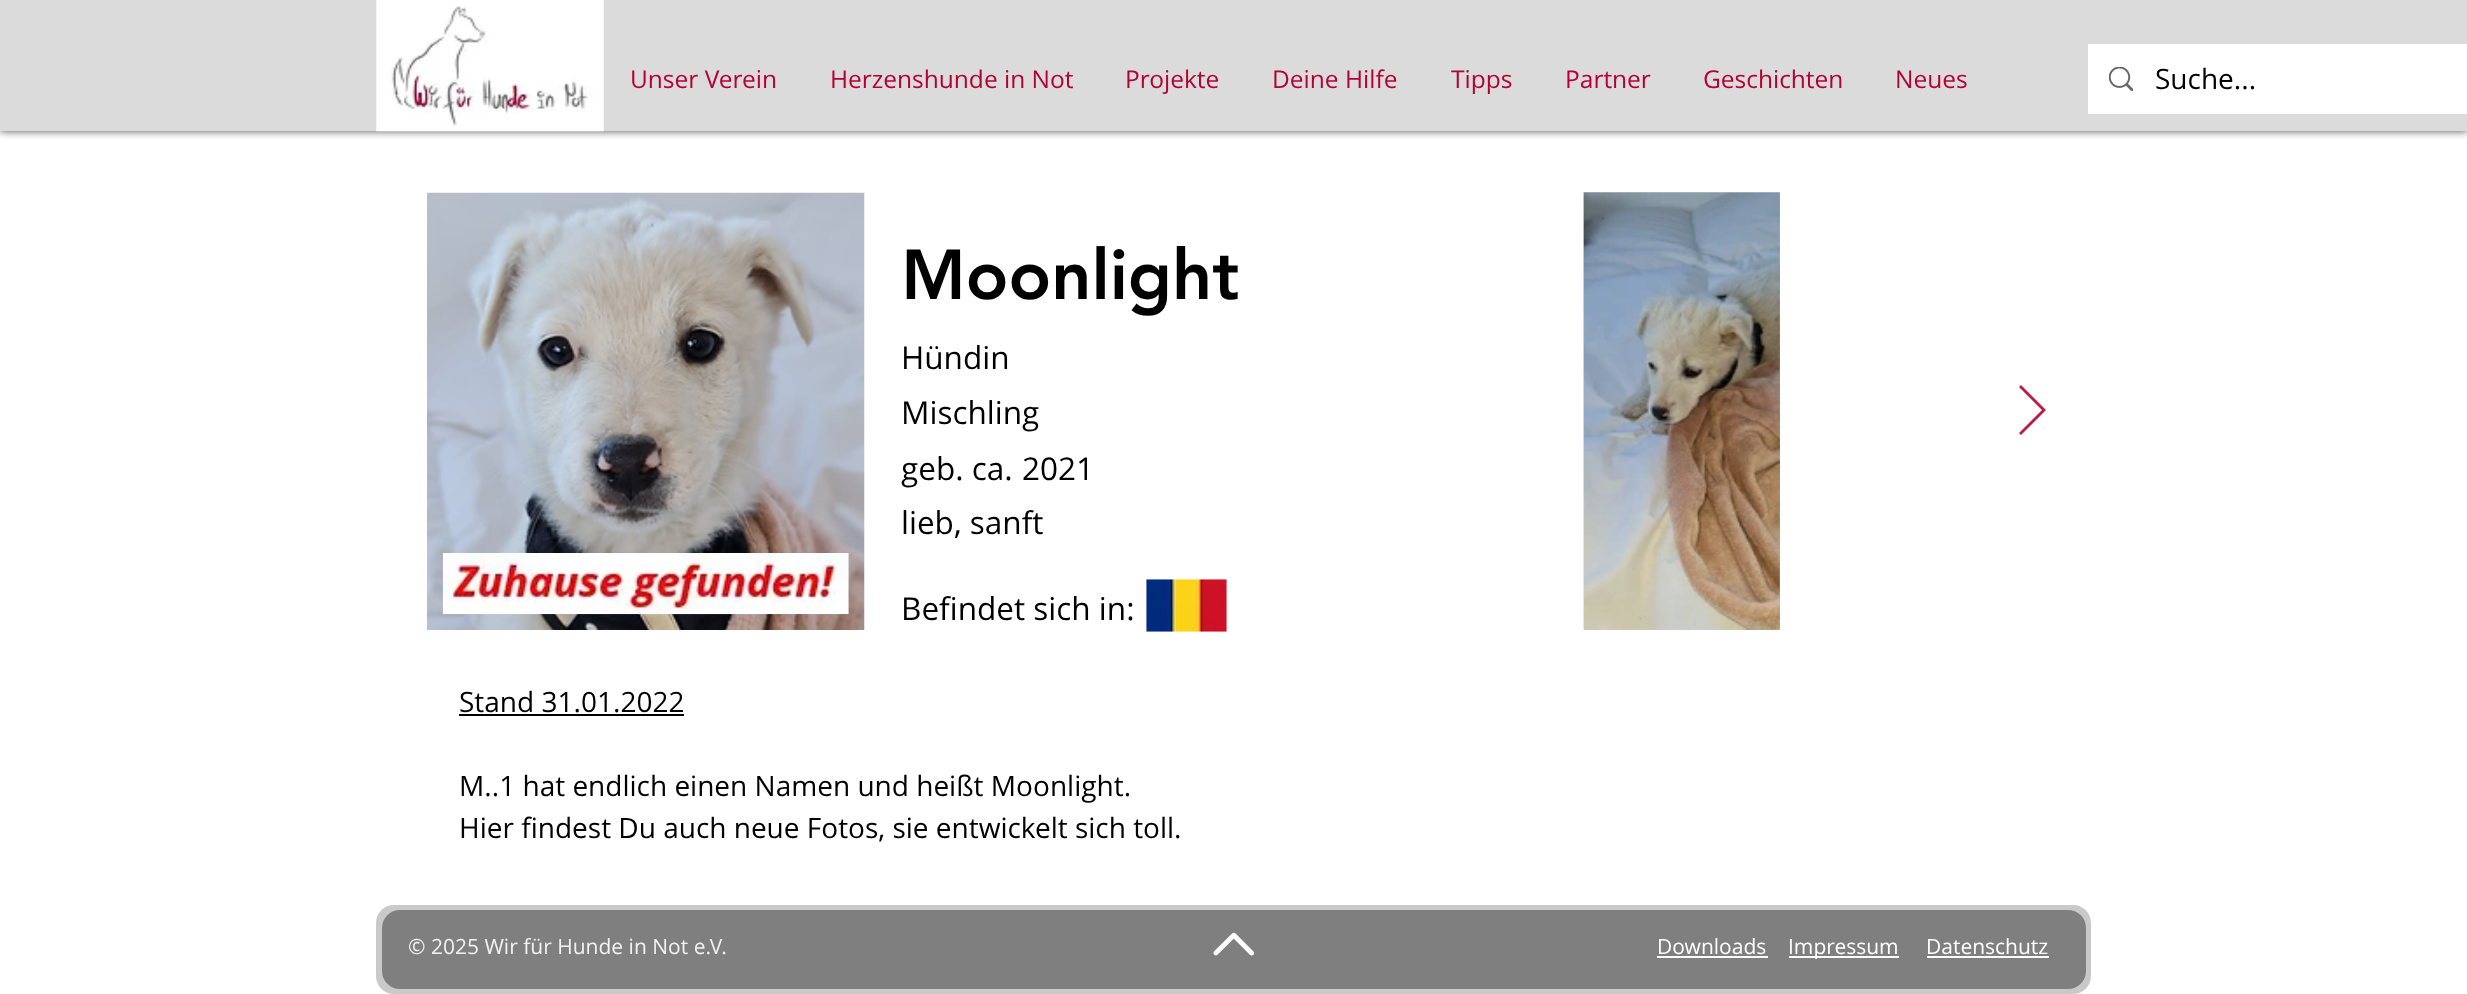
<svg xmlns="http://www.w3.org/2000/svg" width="2467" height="994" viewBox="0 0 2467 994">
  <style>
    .t1 { font: 24.5px Open Sans; fill: #b40034; }
    .t2 { font: 28px Open Sans; fill: #000; }
    .t3 { font: 900 70px 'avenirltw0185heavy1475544'; fill: #000; }
    .t4 { font: 31.5px Open Sans; fill: #000; }
    .t5 { font: 21px Open Sans; fill: #f2f2f2; }
    .t6 { font: 21px Open Sans; fill: #fff; }
  </style>
  <rect width="100%" height="100%" fill="#fff"/>
  <rect x="0" y="0" width="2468" height="131" fill="#000000b3" filter="blur(4.5px)"/>
  <rect x="0" y="0" width="2467" height="131" fill="#dbdbdb"/>
  <image x="376" y="0" width="228" height="132" href="images/1.png"/>
  <text x="630" y="88" class="t1">Unser Verein</text>
  <text x="830" y="88" class="t1">Herzenshunde in Not</text>
  <text x="1125" y="88" class="t1">Projekte</text>
  <text x="1272" y="88" class="t1">Deine Hilfe</text>
  <text x="1451" y="88" class="t1">Tipps</text>
  <text x="1565" y="88" class="t1">Partner</text>
  <text x="1703" y="88" class="t1">Geschichten</text>
  <text x="1895" y="88" class="t1">Neues</text>
  <rect x="2088" y="44" width="379" height="70" fill="#fff"/>
  <image x="2109" y="67" width="24" height="24" href="images/2.png"/>
  <text x="2155" y="89" class="t2">Suche...</text>
  <image x="427" y="192" width="438" height="438" href="images/3.png"/>
  <text x="901" y="299" class="t3">Moonlight</text>
  <image x="1583" y="192" width="197" height="438" href="images/4.png"/>
  <image x="1583" y="192" width="197" height="438" href="images/5.png"/>
  <path d="M2019 387L2021 385L2046 410L2021 435L2019 433L2042 410Z" fill="#bc1a48"/>
  <text x="901" y="369" class="t4">Hündin</text>
  <text x="901" y="424" class="t4">Mischling</text>
  <text x="901" y="480" class="t4">geb. ca.</text>
  <text x="1022" y="480" class="t4">2021</text>
  <text x="901" y="534" class="t4">lieb, sanft</text>
  <image x="442" y="553" width="407" height="62" href="images/6.png"/>
  <text x="901" y="620" class="t4">Befindet sich in:</text>
  <image x="1146" y="579" width="81" height="53" href="images/7.png"/>
  <text x="459" y="712" class="t2">Stand 31.01.2022</text>
  <rect x="459" y="714" width="225" height="2" fill="#000"/>
  <text x="459" y="796" class="t2">M..1 hat endlich einen Namen und heißt Moonlight.</text>
  <text x="459" y="838" class="t2">Hier findest Du auch neue Fotos, sie entwickelt sich toll.</text>
  <rect x="376" y="905" width="1715" height="89" rx="18" fill="#c9c9c9"/>
  <rect x="382" y="910" width="1704" height="79" rx="18" fill="#7f7f7f"/>
  <text x="408" y="954" class="t5">© 2025 Wir für Hunde in Not e.V.</text>
  <image x="1213" y="932" width="41" height="24" href="images/8.png"/>
  <text x="1657" y="954" class="t6">Downloads</text>
  <rect x="1657" y="956" width="111" height="2" fill="#fff"/>
  <rect x="1789" y="956" width="110" height="2" fill="#fff"/>
  <text x="1788" y="954" class="t6">Impressum</text>
  <text x="1926" y="954" class="t6">Datenschutz</text>
  <rect x="1927" y="956" width="122" height="2" fill="#fff"/>
</svg>
